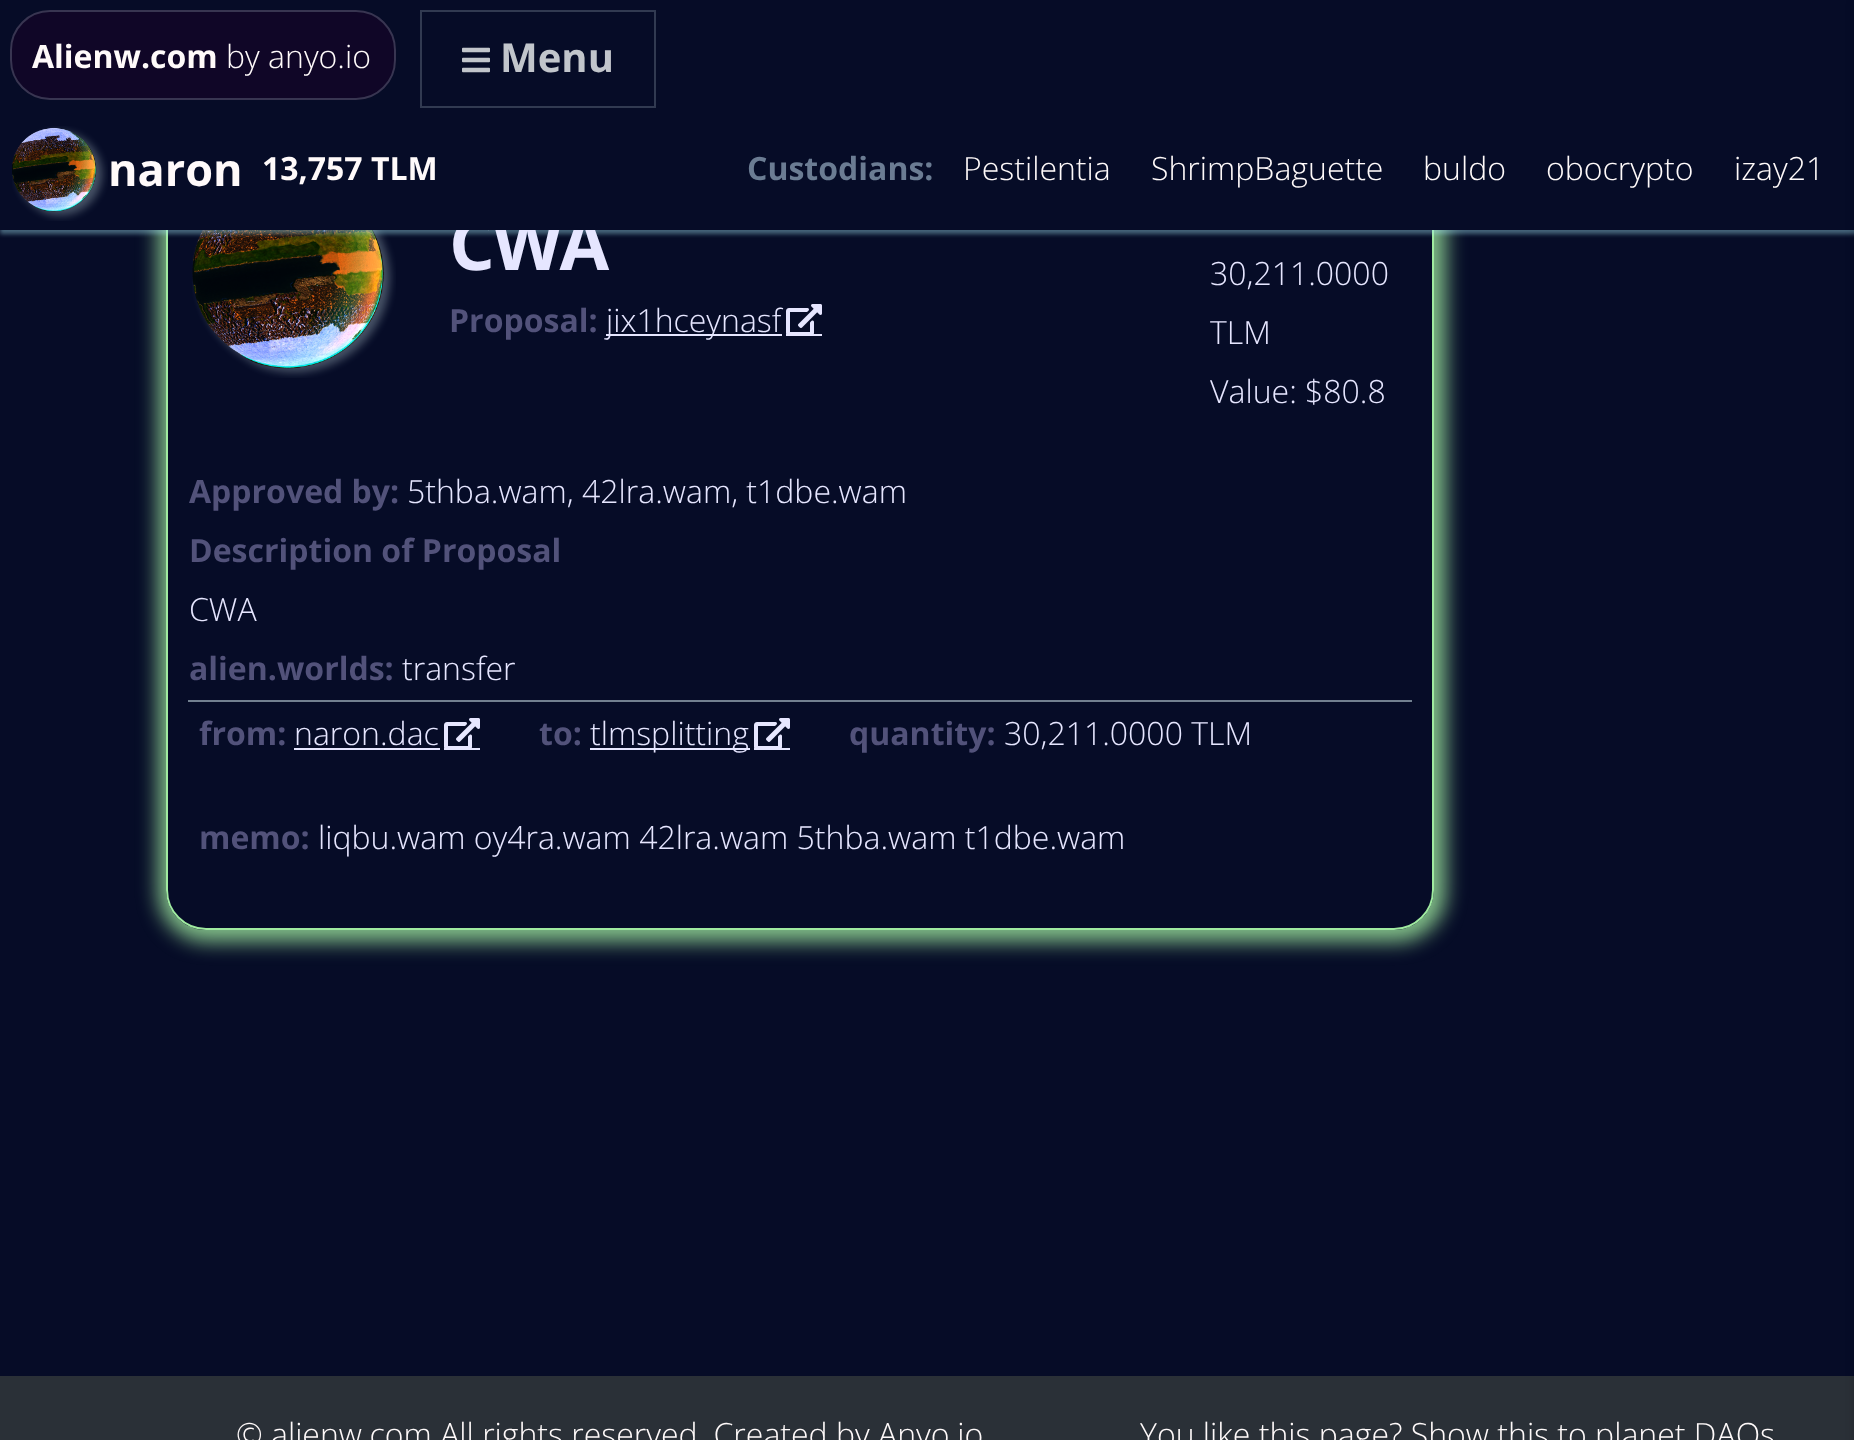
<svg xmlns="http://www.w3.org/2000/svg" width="1854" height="1440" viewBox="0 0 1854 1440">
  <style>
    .t1 { font: bold 72px Open Sans; letter-spacing: -2.5px; fill: #e6e6ff; }
    .t2 { font: bold 32px Open Sans; fill: #fffafa; }
    .t3 { font: 300 32px Open Sans; fill: #fffafa; }
    .t4 { font: bold 40px Open Sans; fill: #c1c5cb; }
    .t5 { font: bold 45px Open Sans; fill: #fffafa; }
    .t6 { font: bold 32px Open Sans; fill: #6b7c93; }
    .t7 { font: bold 32px Open Sans; fill: #52527a; }
    .t8 { font: 300 32px Open Sans; fill: #e6e6ff; }
  </style>
  <defs>
    <clipPath id="clip1"><path d="M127 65H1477V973H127ZM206 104H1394C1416 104 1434 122 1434 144V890C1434 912 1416 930 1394 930H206C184 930 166 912 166 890V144C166 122 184 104 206 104Z" clip-rule="evenodd"/></clipPath>
  </defs>
  <rect width="100%" height="100%" fill="#060c27"/>
  <g clip-path="url(#clip1)">
    <rect x="158" y="96" width="1288" height="846" rx="50" fill="#a0eba0cc" filter="blur(10px)"/>
  </g>
  <rect x="167" y="105" width="1266" height="824" rx="39" fill="none" stroke="#a0eba0" stroke-width="2"/>
  <image x="192" y="230" width="204" height="148" href="images/3.png"/>
  <rect x="0" y="0" width="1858" height="234" fill="#a5ecf866" filter="blur(2px)"/>
  <text x="449" y="270" class="t1">CWA</text>
  <rect x="0" y="0" width="1854" height="230" fill="#060c27"/>
  <rect x="10" y="10" width="386" height="90" rx="40" fill="#100627"/>
  <rect x="11" y="11" width="384" height="88" rx="39" fill="none" stroke="#ddf4f833" stroke-width="2"/>
  <text x="32" y="68" class="t2">Alienw.com</text>
  <text x="226" y="68" class="t3">by anyo.io</text>
  <rect x="421" y="11" width="234" height="96" fill="none" stroke="#313a51" stroke-width="2"/>
  <image x="462" y="47" width="28" height="26" href="images/1.png"/>
  <text x="500" y="72" class="t4">Menu</text>
  <rect x="0" y="1376" width="1854" height="64" fill="#2a3037"/>
  <rect x="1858" y="4" width="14" height="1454" fill="#00000066" filter="blur(6px)"/>
  <image x="12" y="126" width="96" height="95" href="images/2.png"/>
  <text x="108" y="186" class="t5">naron</text>
  <text x="262" y="180" class="t2">13,757 TLM</text>
  <text x="747" y="180" class="t6">Custodians:</text>
  <text x="963" y="180" class="t3">Pestilentia</text>
  <text x="1151" y="180" class="t3">ShrimpBaguette</text>
  <text x="1423" y="180" class="t3">buldo</text>
  <text x="1546" y="180" class="t3">obocrypto</text>
  <text x="1734" y="180" class="t3">izay21</text>
  <text x="449" y="332" class="t7">Proposal:</text>
  <rect x="606" y="334" width="176" height="2" fill="#e6e6ff"/>
  <text x="606" y="332" class="t8">jix1hceynasf</text>
  <rect x="786" y="334" width="36" height="2" fill="#e6e6ff"/>
  <image x="786" y="304" width="36" height="30" href="images/4.png"/>
  <text x="1210" y="285" class="t8">30,211.0000</text>
  <text x="1210" y="344" class="t8">TLM</text>
  <text x="1210" y="403" class="t8">Value: $80.8</text>
  <text x="189" y="503" class="t7">Approved by:</text>
  <text x="407" y="503" class="t8">5thba.wam, 42lra.wam, t1dbe.wam</text>
  <text x="189" y="562" class="t7">Description of Proposal</text>
  <text x="189" y="621" class="t8">CWA</text>
  <text x="189" y="680" class="t7">alien.worlds:</text>
  <text x="402" y="680" class="t8">transfer</text>
  <rect x="188" y="700" width="1224" height="2" fill="#728090"/>
  <text x="199" y="745" class="t7">from:</text>
  <text x="294" y="745" class="t8">naron.dac</text>
  <rect x="294" y="748" width="146" height="2" fill="#e6e6ff"/>
  <rect x="444" y="748" width="36" height="2" fill="#e6e6ff"/>
  <image x="444" y="718" width="36" height="30" href="images/4.png"/>
  <text x="539" y="745" class="t7">to:</text>
  <rect x="590" y="748" width="160" height="2" fill="#e6e6ff"/>
  <text x="590" y="745" class="t8">tlmsplitting</text>
  <rect x="754" y="748" width="36" height="2" fill="#e6e6ff"/>
  <image x="754" y="718" width="36" height="30" href="images/4.png"/>
  <text x="849" y="745" class="t7">quantity:</text>
  <text x="1004" y="745" class="t8">30,211.0000 TLM</text>
  <text x="199" y="849" class="t7">memo:</text>
  <text x="318" y="849" class="t8">liqbu.wam oy4ra.wam 42lra.wam 5thba.wam t1dbe.wam</text>
  <text x="236" y="1446" class="t3">© alienw.com All rights reserved. Created by</text>
  <text x="878" y="1446" class="t3">Anyo.io</text>
  <text x="1140" y="1446" class="t3">You like this page? Show this to planet DAOs</text>
</svg>
